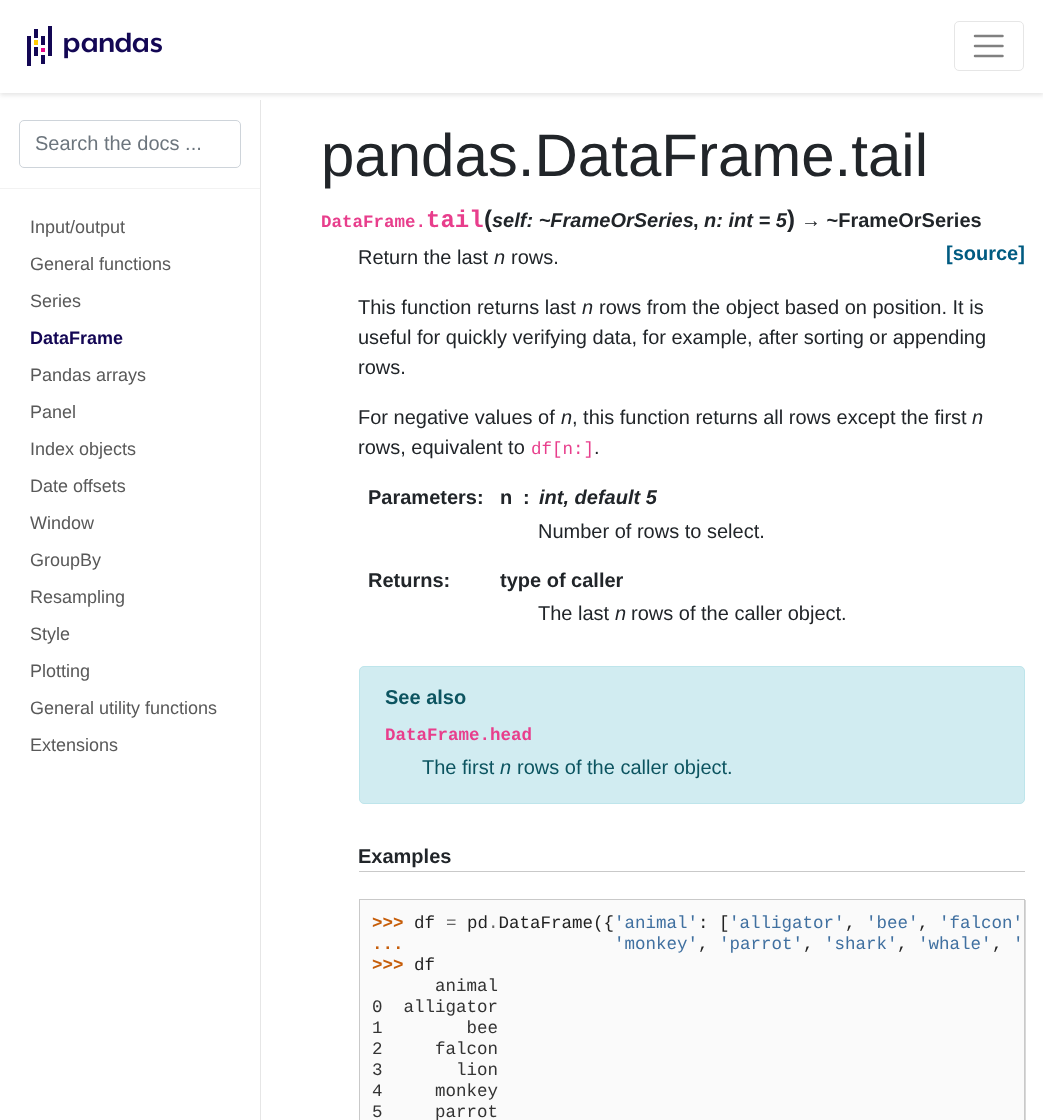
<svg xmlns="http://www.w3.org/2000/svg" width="1043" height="1120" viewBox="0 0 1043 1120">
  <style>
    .t1 { font: 20px Liberation Sans; fill: #6c757d; }
    .t2 { font: 18px Liberation Sans; fill: #595959; }
    .t3 { font: bold 18px Liberation Sans; fill: #130654; }
    .t4 { font: 60px Liberation Sans; fill: #212529; }
    .t5 { font: bold 17.5px Liberation Mono; fill: #e83e8c; }
    .t6 { font: bold 24px Liberation Mono; fill: #e83e8c; }
    .t7 { font: bold 24px Liberation Sans; fill: #212529; }
    .t8 { font: italic bold 20px Liberation Sans; fill: #212529; }
    .t9 { font: bold 20px Liberation Sans; fill: #212529; }
    .t10 { font: bold 20px Liberation Sans; fill: #005b81; }
    .t11 { font: 20px Liberation Sans; fill: #212529; }
    .t12 { font: italic 20px Liberation Sans; fill: #212529; }
    .t13 { font: 17.5px Liberation Mono; fill: #e83e8c; }
    .t14 { font: bold 20px Liberation Sans; fill: #0c5460; }
    .t15 { font: 20px Liberation Sans; fill: #0c5460; }
    .t16 { font: italic 20px Liberation Sans; fill: #0c5460; }
    .t17 { font: bold 17.5px Liberation Mono; fill: #c65d09; }
    .t18 { font: 17.5px Liberation Mono; fill: #222; }
    .t19 { font: 17.5px Liberation Mono; fill: #666; }
    .t20 { font: 17.5px Liberation Mono; fill: #4070a0; }
    .t21 { font: 17.5px Liberation Mono; fill: #333; }
  </style>
  <rect width="100%" height="100%" fill="#fff"/>
  <path d="M261 100V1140L260 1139V100Z" fill="#e6e6e6"/>
  <rect x="0" y="3" width="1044" height="92" fill="#0000001c" filter="blur(2.5px)"/>
  <rect x="0" y="0" width="1043" height="93" fill="#fff"/>
  <image x="27" y="26" width="135" height="40" href="images/1.png"/>
  <rect x="954.5" y="21.5" width="69" height="49" rx="4.5" fill="none" stroke="#e6e6e6"/>
  <path d="M975 36H1002.5M975 46H1002.5M975 56H1002.5" fill="none" stroke="#808080" stroke-width="2.5" stroke-linecap="round"/>
  <rect x="0" y="188" width="260" height="1" fill="#f2f2f2"/>
  <rect x="19.5" y="120.5" width="221" height="47" rx="4.5" fill="none" stroke="#ced4da"/>
  <text x="35" y="150" class="t1">Search the docs ...</text>
  <text x="30" y="233" class="t2">Input/output</text>
  <text x="30" y="270" class="t2">General functions</text>
  <text x="30" y="307" class="t2">Series</text>
  <text x="30" y="344" class="t3">DataFrame</text>
  <text x="30" y="381" class="t2">Pandas arrays</text>
  <text x="30" y="418" class="t2">Panel</text>
  <text x="30" y="455" class="t2">Index objects</text>
  <text x="30" y="492" class="t2">Date offsets</text>
  <text x="30" y="529" class="t2">Window</text>
  <text x="30" y="566" class="t2">GroupBy</text>
  <text x="30" y="603" class="t2">Resampling</text>
  <text x="30" y="640" class="t2">Style</text>
  <text x="30" y="677" class="t2">Plotting</text>
  <text x="30" y="714" class="t2">General utility functions</text>
  <text x="30" y="751" class="t2">Extensions</text>
  <text x="321" y="176" class="t4">pandas.DataFrame.tail</text>
  <text x="321" y="227" class="t5">DataFrame.</text>
  <text x="426" y="227" class="t6">tail</text>
  <text x="484" y="227" class="t7">(</text>
  <text x="492" y="227" class="t8">self: ~FrameOrSeries</text>
  <text x="693" y="227" class="t9">,</text>
  <text x="704" y="227" class="t8">n: int = 5</text>
  <text x="787" y="227" class="t7">)</text>
  <text x="801" y="227" class="t9">→ ~FrameOrSeries</text>
  <text x="946" y="260" class="t10">[source]</text>
  <text x="358" y="264" class="t11">Return the last</text>
  <text x="494" y="264" class="t12">n</text>
  <text x="511" y="264" class="t11">rows.</text>
  <text x="358" y="314" class="t11">This function returns last</text>
  <text x="582" y="314" class="t12">n</text>
  <text x="599" y="314" class="t11">rows from the object based on position. It is</text>
  <text x="358" y="344" class="t11">useful for quickly verifying data, for example, after sorting or appending</text>
  <text x="358" y="374" class="t11">rows.</text>
  <text x="358" y="424" class="t11">For negative values of</text>
  <text x="561" y="424" class="t12">n</text>
  <text x="572" y="424" class="t11">, this function returns all rows except the first</text>
  <text x="972" y="424" class="t12">n</text>
  <text x="358" y="454" class="t11">rows, equivalent to</text>
  <text x="531" y="454" class="t13">df[n:]</text>
  <text x="594" y="454" class="t11">.</text>
  <text x="368" y="504" class="t9">Parameters:</text>
  <text x="500" y="504" class="t9">n</text>
  <text x="523" y="504" class="t9">:</text>
  <text x="539" y="504" class="t8">int, default 5</text>
  <text x="538" y="538" class="t11">Number of rows to select.</text>
  <text x="368" y="587" class="t9">Returns:</text>
  <text x="500" y="587" class="t9">type of caller</text>
  <text x="538" y="620" class="t11">The last</text>
  <text x="615" y="620" class="t12">n</text>
  <text x="631" y="620" class="t11">rows of the caller object.</text>
  <rect x="359.5" y="666.5" width="665" height="137" rx="4.5" fill="#d1ecf1" stroke="#bee5eb"/>
  <text x="385" y="704" class="t14">See also</text>
  <text x="385" y="740" class="t5">DataFrame.head</text>
  <text x="422" y="774" class="t15">The first</text>
  <text x="500" y="774" class="t16">n</text>
  <text x="517" y="774" class="t15">rows of the caller object.</text>
  <rect x="359" y="871" width="666" height="1" fill="#c9c9c9"/>
  <text x="358" y="863" class="t9">Examples</text>
  <rect x="360" y="900" width="666" height="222" fill="#d8d8d8" filter="blur(0.5px)"/>
  <rect x="359.5" y="899.5" width="665" height="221" fill="#fafafa" stroke="#c9c9c9"/>
  <text x="372" y="928" class="t17">&gt;&gt;&gt;</text>
  <text x="414" y="928" class="t18">df</text>
  <text x="446" y="928" class="t19">=</text>
  <text x="467" y="928" class="t18">pd DataFrame({</text>
  <text x="614" y="928" class="t20">'animal'</text>
  <text x="698" y="928" class="t18">: [</text>
  <text x="729" y="928" class="t20">'alligator'</text>
  <text x="866" y="928" class="t20">'bee'</text>
  <text x="939" y="928" class="t20">'falcon'</text>
  <text x="488" y="928" class="t19">.</text>
  <text x="845" y="928" class="t18">,</text>
  <text x="918" y="928" class="t18">,</text>
  <text x="614" y="949" class="t20">'monkey'</text>
  <text x="719" y="949" class="t20">'parrot'</text>
  <text x="824" y="949" class="t20">'shark'</text>
  <text x="918" y="949" class="t20">'whale'</text>
  <text x="1013" y="949" class="t20">'</text>
  <text x="372" y="949" class="t17">...</text>
  <text x="698" y="949" class="t18">,</text>
  <text x="803" y="949" class="t18">,</text>
  <text x="897" y="949" class="t18">,</text>
  <text x="992" y="949" class="t18">,</text>
  <text x="372" y="970" class="t17">&gt;&gt;&gt;</text>
  <text x="414" y="970" class="t18">df</text>
  <text x="435" y="991" class="t21">animal</text>
  <text x="372" y="1012" class="t21" xml:space="preserve">0  alligator</text>
  <text x="372" y="1033" class="t21" xml:space="preserve">1        bee</text>
  <text x="372" y="1054" class="t21" xml:space="preserve">2     falcon</text>
  <text x="372" y="1075" class="t21" xml:space="preserve">3       lion</text>
  <text x="372" y="1096" class="t21" xml:space="preserve">4     monkey</text>
  <text x="372" y="1117" class="t21" xml:space="preserve">5     parrot</text>
</svg>
